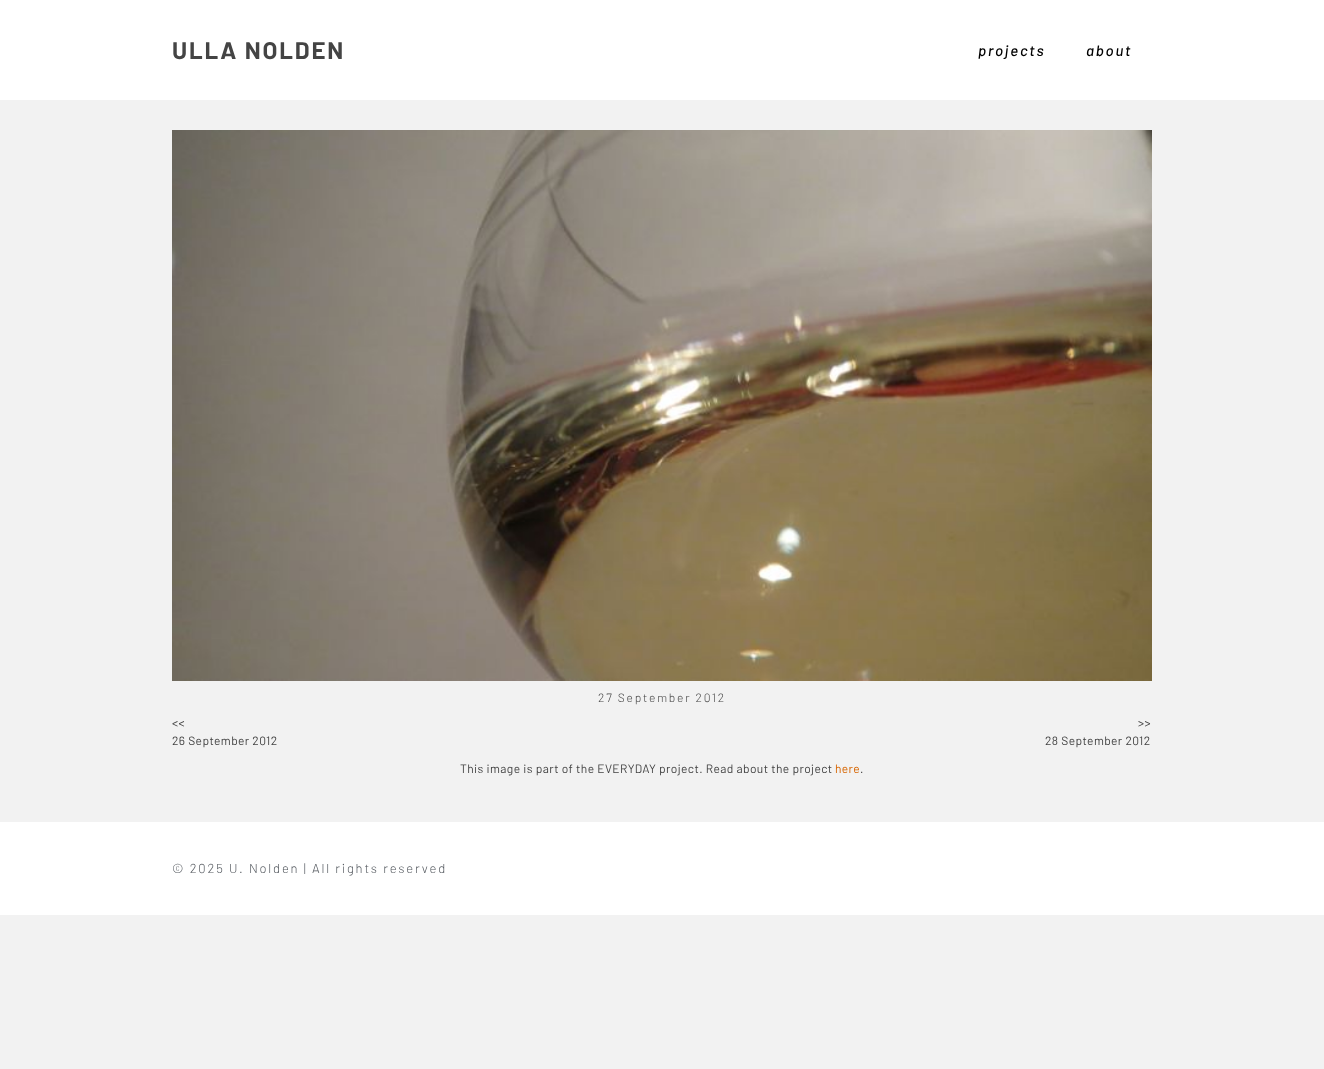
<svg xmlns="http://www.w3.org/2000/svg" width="1324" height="1069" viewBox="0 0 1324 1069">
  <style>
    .t1 { font: bold 24px Barlow; letter-spacing: 1.8px; fill: #444; }
    .t2 { font: italic 500 15px Barlow; letter-spacing: 1.8px; fill: #000; }
    .t3 { font: 300 12px Barlow; letter-spacing: 1.8px; fill: #444; }
    .t4 { font: 12px Barlow; letter-spacing: 0.4px; fill: #444; }
    .t5 { font: 12px Barlow; letter-spacing: 0.4px; fill: #d76500; }
    .t6 { font: 300 13px Barlow; letter-spacing: 1.8px; fill: #54595f; }
  </style>
  <rect width="100%" height="100%" fill="#f2f2f2"/>
  <rect x="0" y="0" width="1324" height="100" fill="#fff"/>
  <text x="172" y="59" class="t1">ULLA NOLDEN</text>
  <text x="978" y="56" class="t2">projects</text>
  <text x="1086" y="56" class="t2">about</text>
  <image x="172" y="130" width="980" height="551" href="images/1.png"/>
  <text x="598" y="702" class="t3">27 September 2012</text>
  <text x="172" y="727" class="t4">&lt;&lt;</text>
  <text x="172" y="745" class="t4">26 September 2012</text>
  <text x="1138" y="727" class="t4">&gt;&gt;</text>
  <text x="1045" y="745" class="t4">28 September 2012</text>
  <text x="460" y="773" class="t4">This image is part of the EVERYDAY project. Read about the project</text>
  <text x="835" y="773" class="t5">here</text>
  <text x="860" y="773" class="t4">.</text>
  <rect x="0" y="822" width="1324" height="93" fill="#fff"/>
  <text x="172" y="873" class="t6">© 2025 U. Nolden | All rights reserved</text>
</svg>
